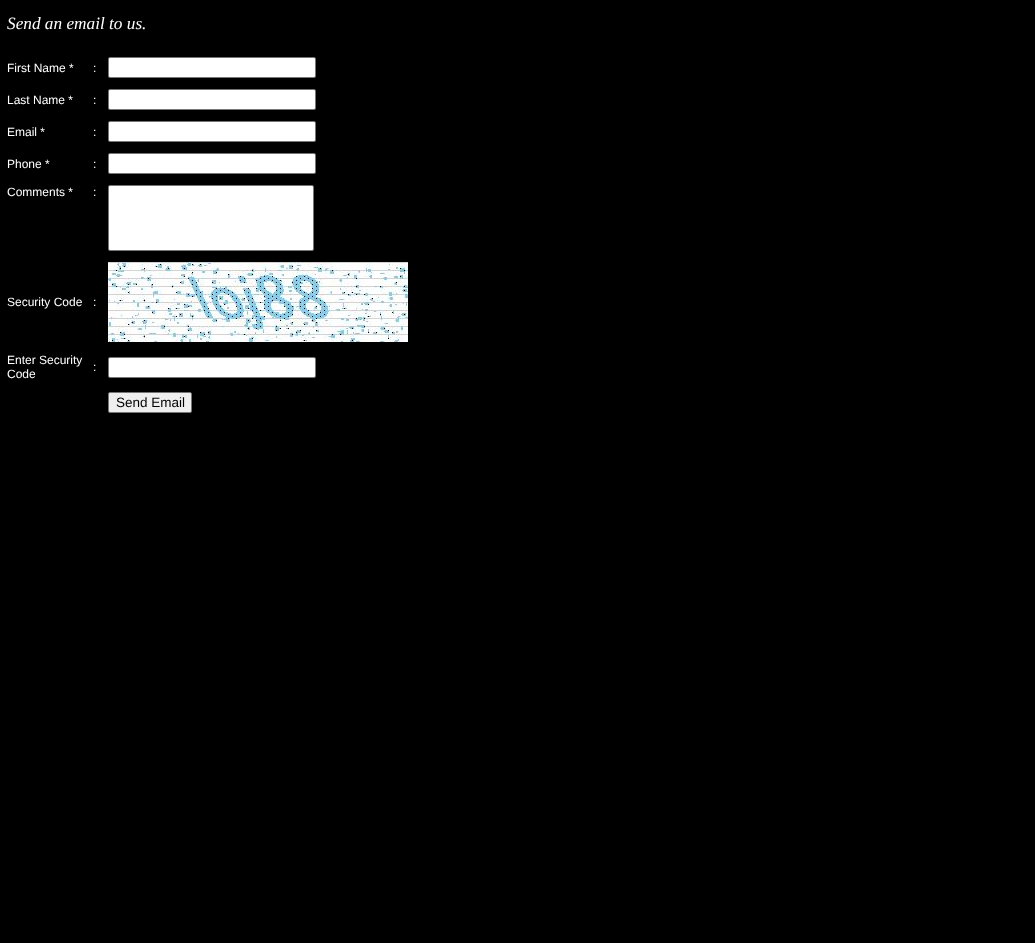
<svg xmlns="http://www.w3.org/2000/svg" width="1035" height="943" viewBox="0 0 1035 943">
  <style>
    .t1 { font: italic 17.25px Liberation Serif; fill: #fff; }
    .t2 { font: 12px Liberation Sans; fill: #fff; }
    .t3 { font: 13.5px Liberation Sans; fill: #000; }
  </style>
  <rect width="100%" height="100%" fill="#000"/>
  <text x="7" y="29" class="t1">Send an email to us.</text>
  <text x="7" y="72" class="t2">First Name *</text>
  <text x="93" y="72" class="t2">:</text>
  <rect x="108.5" y="57.5" width="207" height="20" rx="1.5" fill="#fff" stroke="#767676"/>
  <text x="7" y="104" class="t2">Last Name *</text>
  <text x="93" y="104" class="t2">:</text>
  <rect x="108.5" y="89.5" width="207" height="20" rx="1.5" fill="#fff" stroke="#767676"/>
  <text x="7" y="136" class="t2">Email *</text>
  <text x="93" y="136" class="t2">:</text>
  <rect x="108.5" y="121.5" width="207" height="20" rx="1.5" fill="#fff" stroke="#767676"/>
  <text x="7" y="168" class="t2">Phone *</text>
  <text x="93" y="168" class="t2">:</text>
  <rect x="108.5" y="153.5" width="207" height="20" rx="1.5" fill="#fff" stroke="#767676"/>
  <text x="7" y="196" class="t2">Comments *</text>
  <text x="93" y="196" class="t2">:</text>
  <rect x="108.5" y="185.5" width="205" height="65" rx="1.5" fill="#fff" stroke="#767676"/>
  <text x="7" y="306" class="t2">Security Code</text>
  <text x="93" y="306" class="t2">:</text>
  <image x="108" y="262" width="300" height="80" href="images/1.png"/>
  <text x="7" y="364" class="t2">Enter Security</text>
  <text x="7" y="378" class="t2">Code</text>
  <text x="93" y="371" class="t2">:</text>
  <rect x="108.5" y="357.5" width="207" height="20" rx="1.5" fill="#fff" stroke="#767676"/>
  <rect x="108.5" y="392.5" width="83" height="20" rx="1.5" fill="#efefef" stroke="#767676"/>
  <text x="116" y="407" class="t3">Send Email</text>
</svg>
